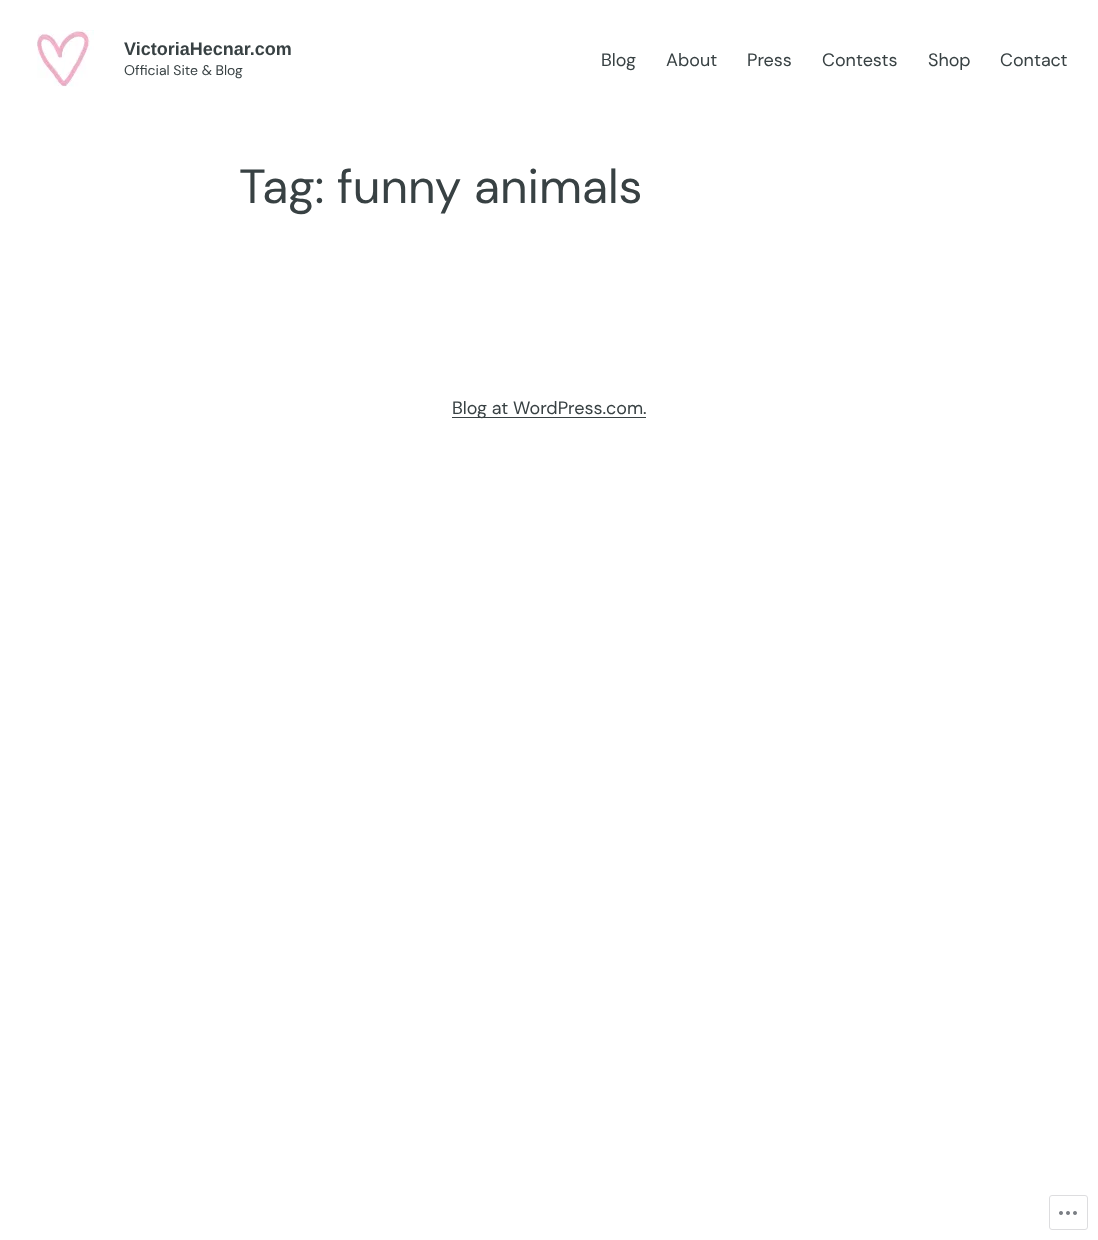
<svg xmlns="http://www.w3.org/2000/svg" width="1098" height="1240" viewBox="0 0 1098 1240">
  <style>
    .t1 { font: bold 18px Liberation Sans; fill: #384143; }
    .t2 { font: 14px DM Sans; fill: #384143; }
    .t3 { font: 18px DM Sans; fill: #384143; }
    .t4 { font: 48px DM Sans; fill: #384143; }
  </style>
  <rect width="100%" height="100%" fill="#fff"/>
  <image x="37" y="30" width="57" height="57" href="images/1.png"/>
  <text x="124" y="55" class="t1">VictoriaHecnar.com</text>
  <text x="124" y="75" class="t2">Official Site &amp; Blog</text>
  <text x="601" y="66" class="t3">Blog</text>
  <text x="666" y="66" class="t3">About</text>
  <text x="747" y="66" class="t3">Press</text>
  <text x="822" y="66" class="t3">Contests</text>
  <text x="928" y="66" class="t3">Shop</text>
  <text x="1000" y="66" class="t3">Contact</text>
  <text x="239" y="203" class="t4">Tag: funny animals</text>
  <rect x="452" y="417" width="194" height="1" fill="#384143"/>
  <text x="452" y="414" class="t3">Blog at WordPress.com.</text>
  <rect x="1049.5" y="1195.5" width="38" height="34" rx="2.5" fill="none" stroke="#dddddf"/>
  <image x="1059" y="1211" width="18" height="4" href="images/2.png"/>
</svg>
